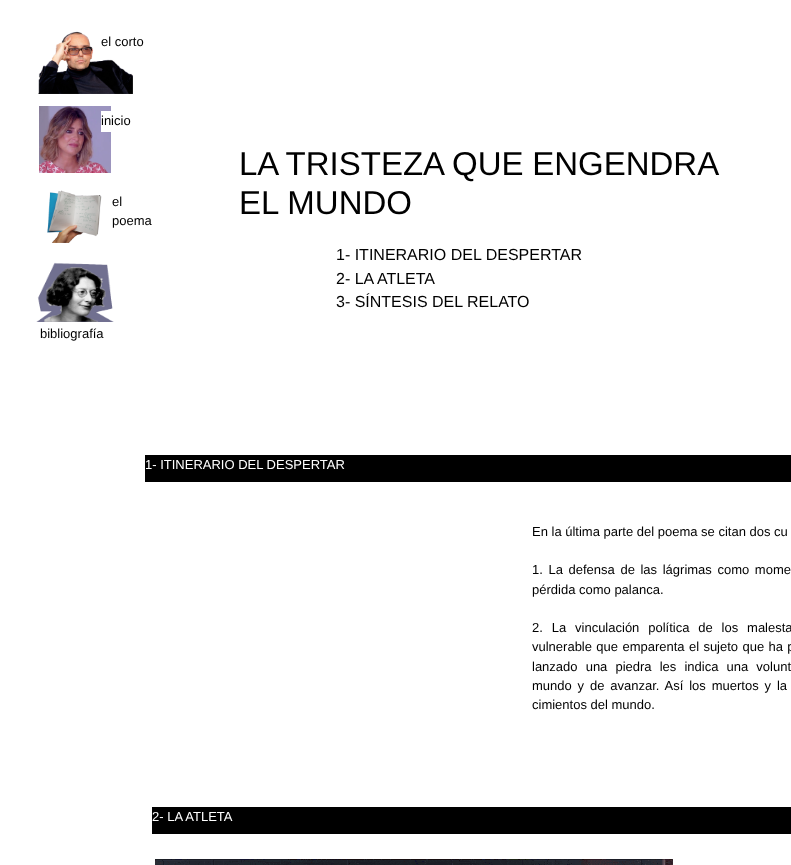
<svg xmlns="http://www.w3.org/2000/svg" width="791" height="865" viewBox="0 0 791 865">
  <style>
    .t1 { font: 13px Liberation Sans; fill: #000; }
    .t2 { font: 33px Liberation Sans; fill: #000; }
    .t3 { font: 16px Liberation Sans; fill: #000; }
    .t4 { font: 13px Liberation Sans; fill: #fff; }
  </style>
  <rect width="100%" height="100%" fill="#fff"/>
  <image x="38" y="31" width="95" height="63" href="images/1.png"/>
  <text x="101" y="46" class="t1">el corto</text>
  <image x="39" y="106" width="72" height="67" href="images/2.png"/>
  <rect x="101" y="111" width="10" height="21" fill="#fff"/>
  <text x="101" y="125" class="t1">inicio</text>
  <image x="47" y="190" width="55" height="53" href="images/3.png"/>
  <text x="112" y="206" class="t1">el</text>
  <text x="112" y="225" class="t1">poema</text>
  <text x="239" y="175" word-spacing="-0.5" class="t2">LA TRISTEZA QUE ENGENDRA</text>
  <text x="239" y="214" class="t2">EL MUNDO</text>
  <image x="36" y="262" width="78" height="60" href="images/4.png"/>
  <text x="336" y="260" class="t3">1- ITINERARIO DEL DESPERTAR</text>
  <text x="336" y="284" class="t3">2- LA ATLETA</text>
  <text x="336" y="307" class="t3">3- SÍNTESIS DEL RELATO</text>
  <text x="40" y="338" class="t1">bibliografía</text>
  <rect x="145" y="455" width="646" height="27" fill="#000"/>
  <text x="145" y="469" class="t4">1- ITINERARIO DEL DESPERTAR</text>
  <text x="532" y="536" class="t1">En la última parte del poema se citan dos cu</text>
  <text x="532" y="574" word-spacing="2" class="t1">1. La defensa de las lágrimas como mome</text>
  <text x="532" y="594" class="t1">pérdida como palanca.</text>
  <text x="532" y="632" word-spacing="5.25" class="t1">2. La vinculación política de los malesta</text>
  <text x="532" y="651" word-spacing="0.75" class="t1">vulnerable que emparenta el sujeto que ha p</text>
  <text x="532" y="671" word-spacing="4.5" class="t1">lanzado una piedra les indica una volunt</text>
  <text x="532" y="690" word-spacing="2.25" class="t1">mundo y de avanzar. Así los muertos y la</text>
  <text x="532" y="709" class="t1">cimientos del mundo.</text>
  <rect x="152" y="807" width="639" height="27" fill="#000"/>
  <text x="152" y="821" class="t4">2- LA ATLETA</text>
  <image x="155" y="859" width="518" height="6" href="images/5.png"/>
</svg>
